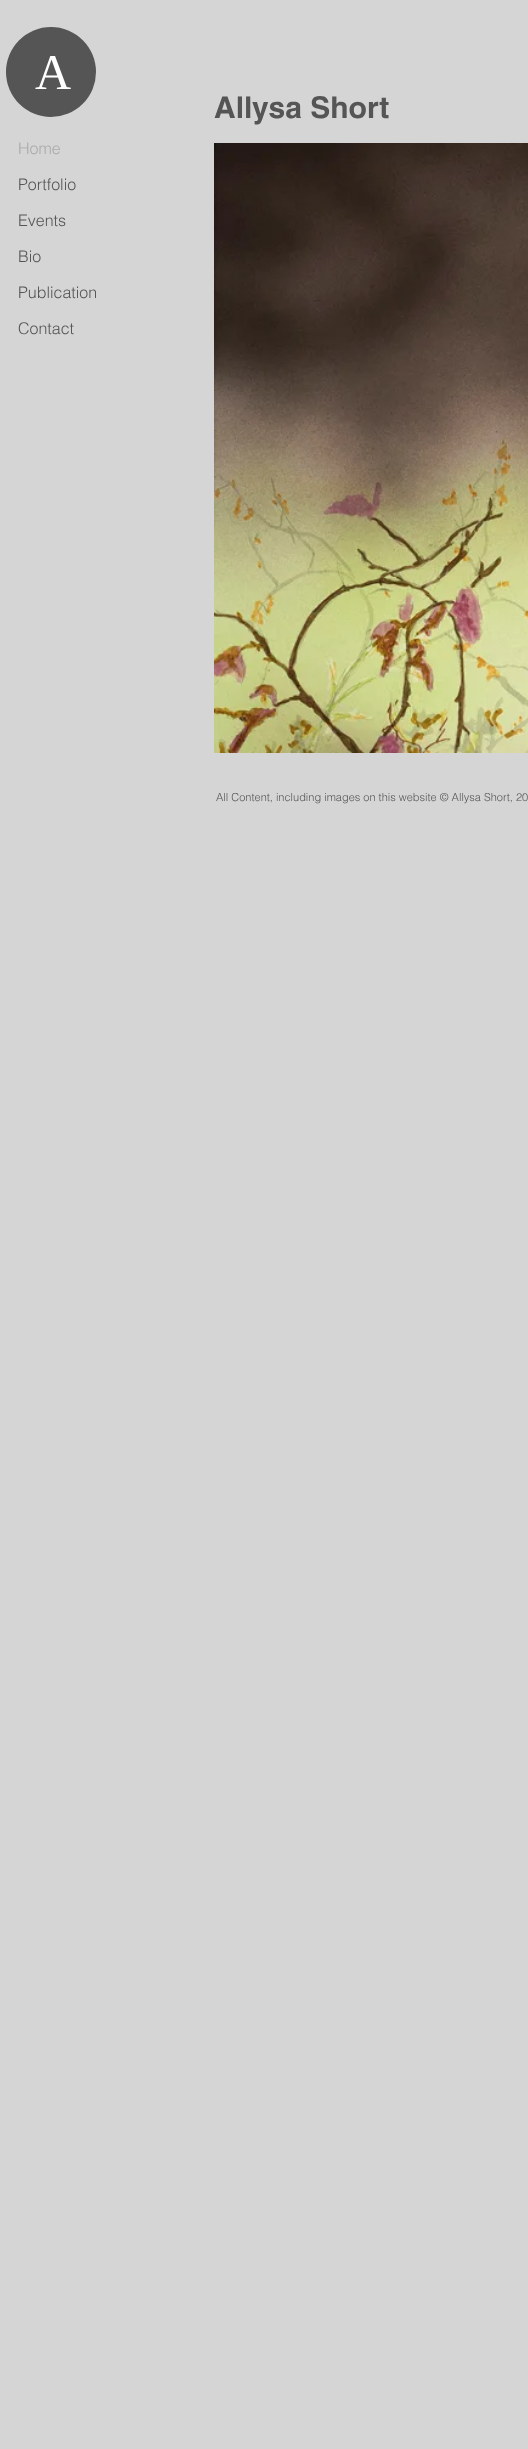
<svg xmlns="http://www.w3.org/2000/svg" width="528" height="2449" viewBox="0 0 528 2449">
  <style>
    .t1 { font: 50px Liberation Serif; fill: #fff; }
    .t2 { font: bold 30px helvetica; fill: #555; }
    .t3 { font: 300 16px helvetica; fill: #aaa; }
    .t4 { font: 300 16px helvetica; fill: #555; }
    .t5 { font: 300 11px helvetica; fill: #555; }
  </style>
  <rect width="100%" height="100%" fill="#d5d5d5"/>
  <circle cx="51" cy="72" r="45" fill="#555"/>
  <text x="35" y="89" class="t1">A</text>
  <text x="214" y="118" class="t2">Allysa Short</text>
  <text x="18" y="154" class="t3">Home</text>
  <text x="18" y="190" class="t4">Portfolio</text>
  <text x="18" y="226" class="t4">Events</text>
  <text x="18" y="262" class="t4">Bio</text>
  <text x="18" y="298" class="t4">Publication</text>
  <text x="18" y="334" class="t4">Contact</text>
  <image x="214" y="143" width="314" height="610" href="images/1.png"/>
  <text x="216" y="801" class="t5">All Content, including images on this website © Allysa Short, 20</text>
</svg>
